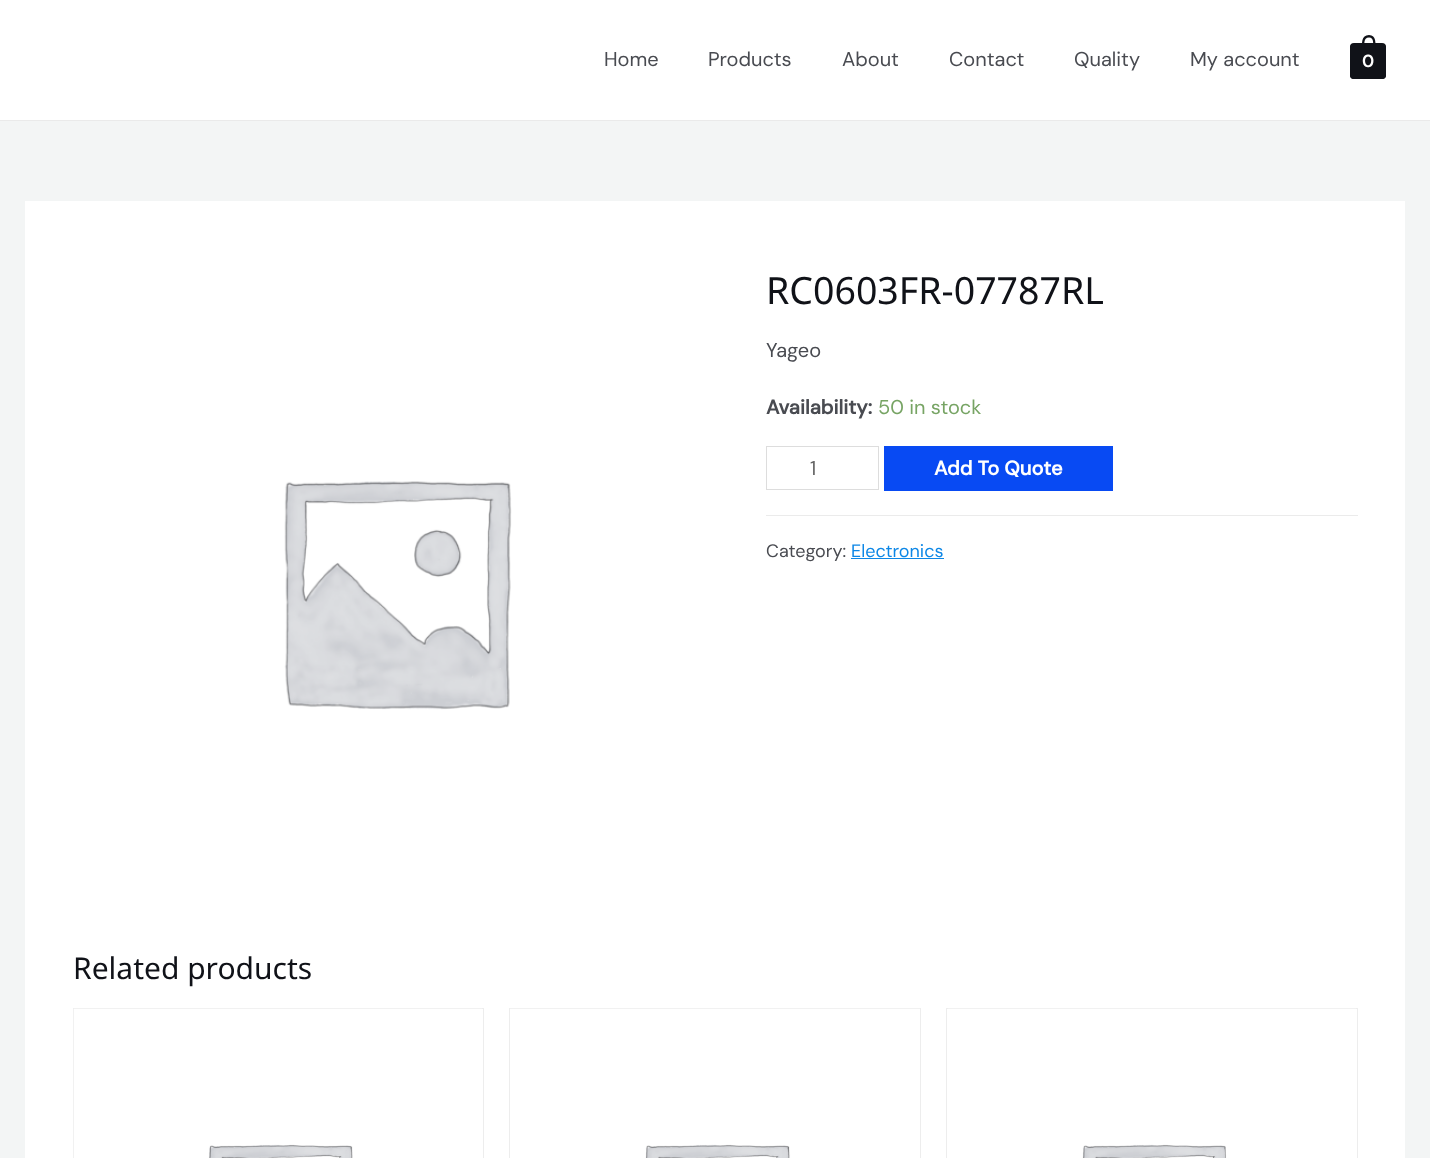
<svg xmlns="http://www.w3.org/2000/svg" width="1430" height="1158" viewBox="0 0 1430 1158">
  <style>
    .t1 { font: 20px DM Sans; fill: #494b51; }
    .t2 { font: bold 17px DM Sans; fill: #fff; }
    .t3 { font: 37.5px Noto Sans; fill: #101218; }
    .t4 { font: bold 20px DM Sans; fill: #494b51; }
    .t5 { font: 20px DM Sans; fill: #77a464; }
    .t6 { font: 20px DM Sans; fill: #666; }
    .t7 { font: bold 20px DM Sans; fill: #fff; }
    .t8 { font: 18px DM Sans; fill: #494b51; }
    .t9 { font: 18px DM Sans; fill: #0d87e6; }
    .t10 { font: 30px Noto Sans; fill: #101218; }
  </style>
  <rect width="100%" height="100%" fill="#f3f5f5"/>
  <rect x="0" y="0" width="1430" height="120" fill="#fff"/>
  <rect x="0" y="120" width="1430" height="1" fill="#eaeaea"/>
  <text x="604" y="66" class="t1">Home</text>
  <text x="708" y="66" class="t1">Products</text>
  <text x="842" y="66" class="t1">About</text>
  <text x="949" y="66" class="t1">Contact</text>
  <text x="1074" y="66" class="t1">Quality</text>
  <text x="1190" y="66" class="t1">My account</text>
  <rect x="1350" y="43" width="36" height="36" rx="4" fill="#101218"/>
  <rect x="1351.5" y="45.5" width="33" height="32" rx="2.5" fill="#101218" stroke="#101218" stroke-width="3"/>
  <path d="M1369 35C1376.5 35 1375.5 43.5 1375.5 49H1362C1362 43.5 1361 35 1369 35ZM1369 37.5C1374.5 37.5 1373 45 1373 49H1364.5C1364.5 45 1363 37.5 1369 37.5Z" fill="#101218" fill-rule="evenodd"/>
  <text x="1362" y="67" class="t2">0</text>
  <rect x="25" y="201" width="1380" height="957" fill="#fff"/>
  <text x="766" y="304" class="t3">RC0603FR-07787RL</text>
  <text x="766" y="357" class="t1">Yageo</text>
  <text x="766" y="414" class="t4">Availability:</text>
  <text x="878" y="414" class="t5">50 in stock</text>
  <rect x="766.5" y="446.5" width="112" height="43" fill="none" stroke="#ddd"/>
  <text x="810" y="475" class="t6">1</text>
  <rect x="884" y="446" width="229" height="45" fill="#084af3"/>
  <text x="934" y="475" class="t7">Add To Quote</text>
  <rect x="766" y="515" width="592" height="1" fill="#ebebeb"/>
  <text x="766" y="557" class="t8">Category:</text>
  <text x="851" y="557" class="t9">Electronics</text>
  <rect x="851" y="558" width="93" height="1" fill="#0d87e6"/>
  <image x="284" y="481" width="228" height="229" href="images/1.png"/>
  <text x="73" y="979" class="t10">Related products</text>
  <rect x="73.5" y="1008.5" width="410" height="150" fill="none" stroke="#ededed"/>
  <image x="73" y="1008" width="409" height="150" href="images/2.png"/>
  <rect x="509.5" y="1008.5" width="411" height="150" fill="none" stroke="#ededed"/>
  <image x="510" y="1008" width="410" height="150" href="images/3.png"/>
  <rect x="946.5" y="1008.5" width="411" height="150" fill="none" stroke="#ededed"/>
  <image x="948" y="1008" width="408" height="150" href="images/4.png"/>
</svg>
